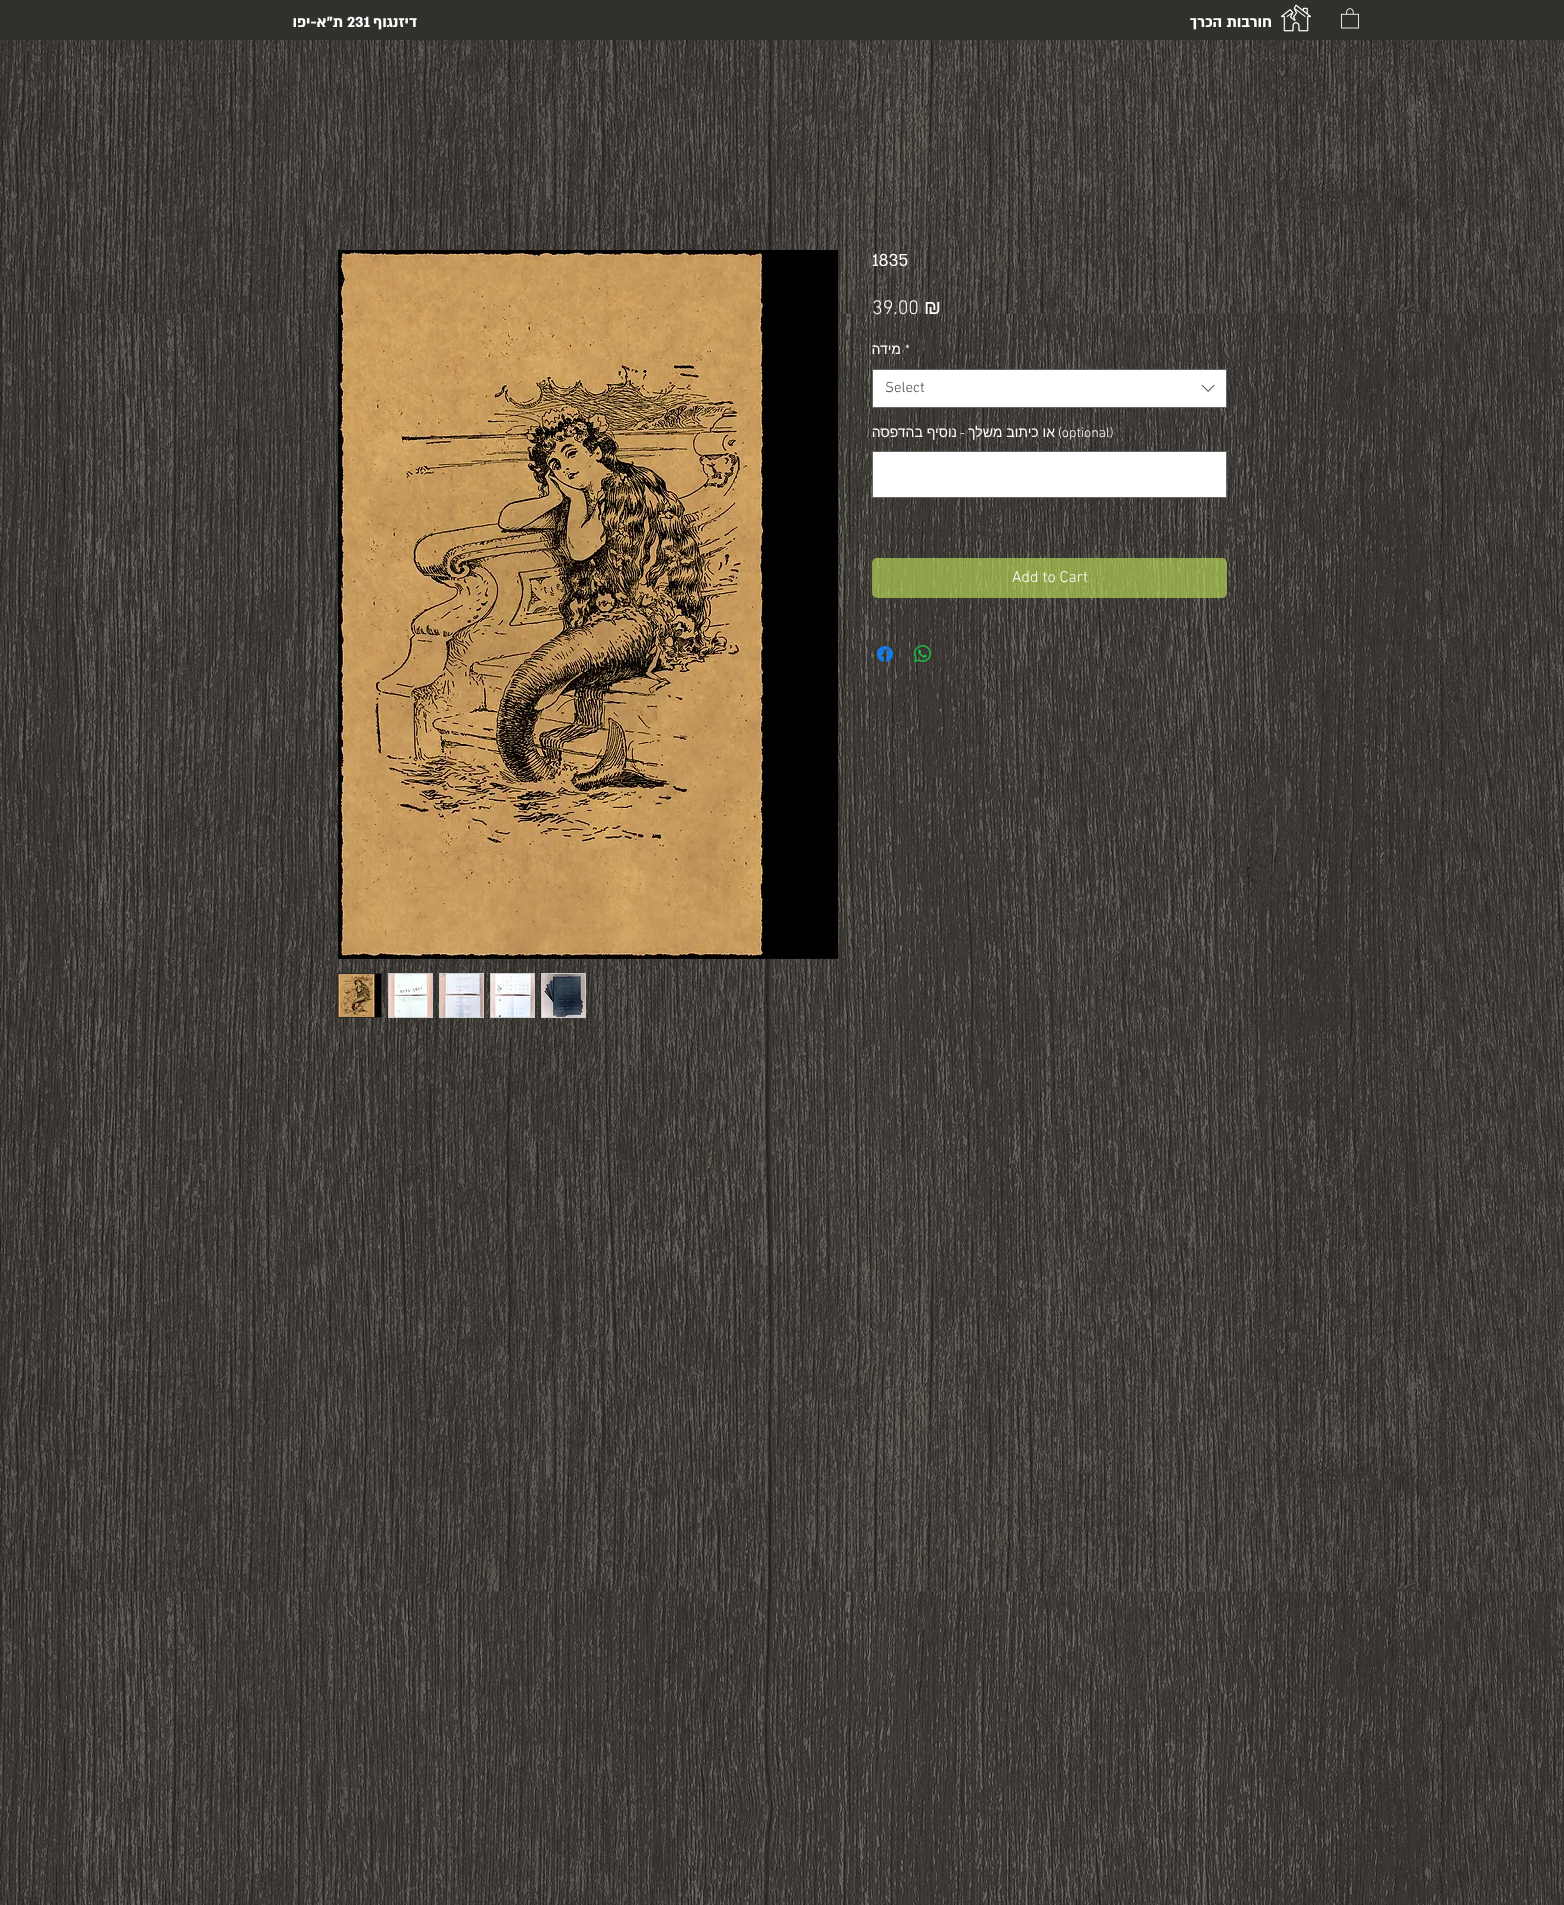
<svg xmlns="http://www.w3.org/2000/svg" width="1564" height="1905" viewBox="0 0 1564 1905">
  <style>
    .t1 { font: bold 17px 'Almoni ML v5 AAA'; direction: rtl; fill: #fff; }
    .t2 { font: bold 17px 'Almoni ML v5 AAA'; fill: #fff; }
    .t3 { font: 20px 'Almoni ML v5 AAA'; fill: #fff; }
    .t4 { font: 20px Liberation Sans; fill: #fff; }
    .t5 { font: 300 20px 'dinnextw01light'; fill: #fff; }
    .t6 { font: 300 14px 'dinnextw01light'; fill: #fff; }
    .t7 { font: 14px Liberation Sans; direction: rtl; fill: #fff; }
    .t8 { font: 300 15px 'dinnextw01light'; fill: #444; }
    .t9 { font: 300 14px 'dinnextw01light'; direction: rtl; fill: #fff; }
    .t10 { font: 300 14px 'dinnextw01light'; fill: #555; }
    .t11 { font: 300 16px 'dinnextw01light'; fill: #fff; }
  </style>
  <rect width="100%" height="100%" fill="#32302d"/>
  <image x="1341" y="8" width="18" height="21" href="images/1.png"/>
  <image x="1281" y="4" width="30" height="28" href="images/2.png"/>
  <text x="1272" y="27" class="t1">חורבות הכרך</text>
  <text x="417" y="27" class="t1">דיזנגוף</text>
  <text x="347" y="27" class="t2">231</text>
  <text x="343" y="27" class="t1">ת"א-יפו</text>
  <image x="0" y="40" width="1564" height="1865" href="images/12.png"/>
  <text x="872" y="266" class="t3">1835</text>
  <text x="924" y="314" class="t4">₪</text>
  <text x="872" y="314" class="t5">39.00</text>
  <text x="905" y="354" class="t6">*</text>
  <text x="901" y="354" class="t7">מידה</text>
  <rect x="872.5" y="369.5" width="354" height="38" fill="#fff" stroke="#666"/>
  <image x="1201" y="384" width="14" height="8" href="images/3.png"/>
  <text x="885" y="392" class="t8">Select</text>
  <text x="1058" y="437" class="t6">(optional)</text>
  <text x="1055" y="437" class="t7">או כיתוב משלך</text>
  <text x="965" y="437" class="t9">-</text>
  <text x="957" y="437" class="t7">נוסיף בהדפסה</text>
  <rect x="872.5" y="451.5" width="354" height="46" fill="#fff" stroke="#666"/>
  <text x="1192" y="519" class="t10">0/500</text>
  <rect x="872" y="558" width="355" height="40" rx="5" fill="#bada55a8"/>
  <text x="1012" y="582" class="t11">Add to Cart</text>
  <image x="914" y="645" width="17" height="17" href="images/4.png"/>
  <image x="877" y="646" width="16" height="16" href="images/5.png"/>
  <image x="338" y="250" width="500" height="709" href="images/6.png"/>
  <rect x="541" y="973" width="45" height="45" fill="#ccc"/>
  <image x="542" y="974" width="43" height="43" href="images/7.png"/>
  <rect x="490" y="973" width="45" height="45" fill="#ccc"/>
  <image x="491" y="974" width="43" height="43" href="images/8.png"/>
  <rect x="439" y="973" width="45" height="45" fill="#ccc"/>
  <image x="440" y="974" width="43" height="43" href="images/9.png"/>
  <rect x="388" y="973" width="45" height="45" fill="#ccc"/>
  <image x="389" y="974" width="43" height="43" href="images/10.png"/>
  <rect x="337.5" y="973.5" width="44" height="44" fill="none" stroke="#2a2a2a"/>
  <image x="338" y="974" width="43" height="43" href="images/11.png"/>
</svg>
